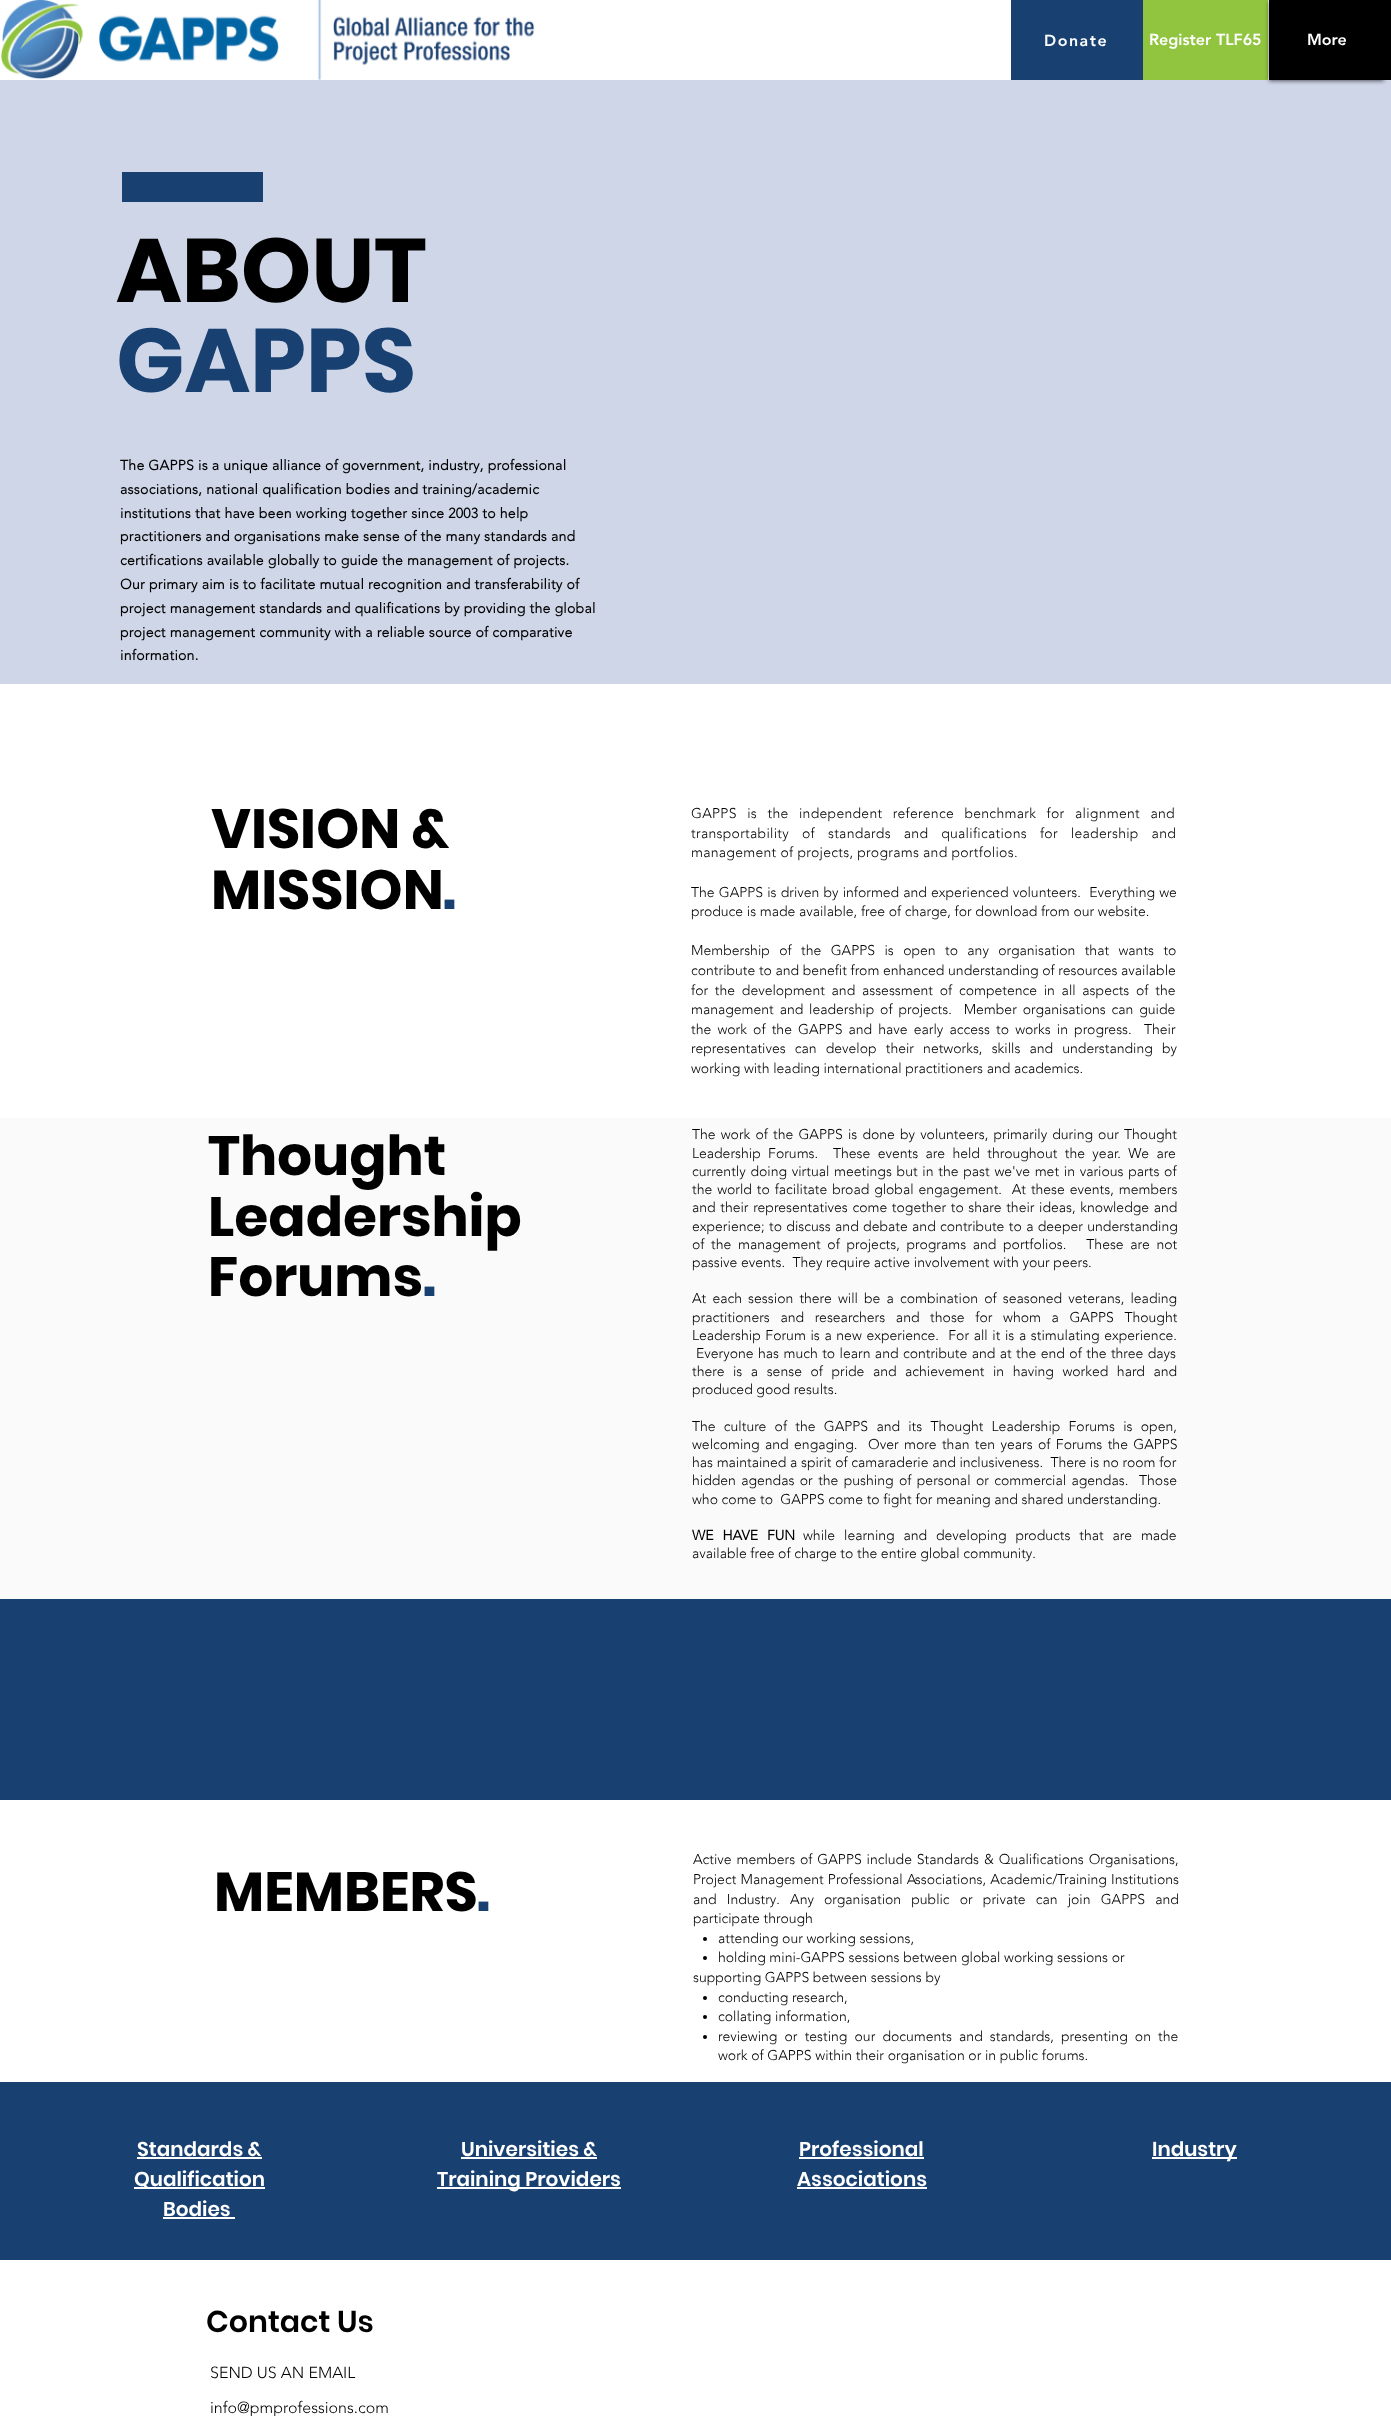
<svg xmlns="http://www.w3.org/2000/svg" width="1391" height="2416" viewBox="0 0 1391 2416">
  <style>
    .t1 { font: 900 16px 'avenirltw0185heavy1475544'; letter-spacing: 1.5px; fill: #fff; }
    .t2 { font: 900 16px 'avenirltw0185heavy1475544'; fill: #fff; }
    .t3 { font: bold 90px Poppins; fill: #000; }
    .t4 { font: bold 90px Poppins; fill: #184071; }
    .t5 { font: bold 14px 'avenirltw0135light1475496'; letter-spacing: 0.28px; fill: #000; }
    .t6 { font: bold 55px Poppins; fill: #000; }
    .t7 { font: bold 55px Poppins; fill: #184071; }
    .t8 { font: 300 14px 'avenirltw0135light1475496'; letter-spacing: 0.28px; fill: #000; }
    .t9 { font: 300 14px 'avenirltw0135light1475496'; fill: #000; }
    .t10 { font: bold 14px 'avenirltw0135light1475496'; fill: #000; }
    .t11 { font: 600 20px Poppins; fill: #fff; }
    .t12 { font: 600 30px Poppins; fill: #000; }
    .t13 { font: 300 16px 'avenirltw0135light1475496'; fill: #000; }
  </style>
  <rect width="100%" height="100%" fill="#184071"/>
  <rect x="0" y="0" width="1269" height="80" fill="#fff"/>
  <image x="1" y="0" width="534" height="80" href="images/1.png"/>
  <rect x="1011" y="0" width="132" height="80" fill="#184071"/>
  <text x="1044" y="46" class="t1">Donate</text>
  <rect x="1143" y="0" width="125" height="80" fill="#91c53f"/>
  <text x="1149" y="45" class="t2">Register TLF65</text>
  <rect x="1384" y="0" width="7" height="80" fill="#000"/>
  <rect x="0" y="80" width="1391" height="604" fill="#cfd6e8"/>
  <rect x="1269" y="1" width="115" height="80" fill="#00000099" filter="blur(2px)"/>
  <rect x="1269" y="0" width="115" height="80" fill="#000"/>
  <text x="1307" y="45" class="t2">More</text>
  <rect x="122" y="172" width="141" height="30" fill="#184071"/>
  <text x="116" y="302" class="t3">ABOUT</text>
  <text x="116" y="392" class="t4">GAPPS</text>
  <text x="120" y="470" class="t5">The GAPPS is a unique alliance of government, industry, professional</text>
  <text x="120" y="494" class="t5">associations, national qualification bodies and training/academic</text>
  <text x="120" y="518" class="t5">institutions that have been working together since 2003 to help</text>
  <text x="120" y="541" class="t5">practitioners and organisations make sense of the many standards and</text>
  <text x="120" y="565" class="t5">certifications available globally to guide the management of projects.</text>
  <text x="120" y="589" class="t5">Our primary aim is to facilitate mutual recognition and transferability of</text>
  <text x="120" y="613" class="t5">project management standards and qualifications by providing the global</text>
  <text x="120" y="637" class="t5">project management community with a reliable source of comparative</text>
  <text x="120" y="660" class="t5">information.</text>
  <rect x="0" y="684" width="1391" height="434" fill="#fff"/>
  <text x="211" y="848" class="t6">VISION &amp;</text>
  <text x="211" y="909" class="t6">MISSION</text>
  <text x="443" y="909" class="t7">.</text>
  <text x="691" y="818" word-spacing="6.5" class="t8">GAPPS is the independent reference benchmark for alignment and</text>
  <text x="691" y="838" word-spacing="9" class="t8">transportability of standards and qualifications for leadership and</text>
  <text x="691" y="857" class="t8">management of projects, programs and portfolios.</text>
  <text x="691" y="897" word-spacing="0.5" class="t9" xml:space="preserve">The GAPPS is driven by informed and experienced volunteers.  Everything we</text>
  <text x="691" y="916" class="t9">produce is made available, free of charge, for download from our website.</text>
  <text x="691" y="955" word-spacing="5.75" class="t9">Membership of the GAPPS is open to any organisation that wants to</text>
  <text x="691" y="975" class="t9">contribute to and benefit from enhanced understanding of resources available</text>
  <text x="691" y="995" word-spacing="3.1" class="t9">for the development and assessment of competence in all aspects of the</text>
  <text x="691" y="1014" word-spacing="2.25" class="t9" xml:space="preserve">management and leadership of projects.  Member organisations can guide</text>
  <text x="691" y="1034" word-spacing="2.5" class="t9" xml:space="preserve">the work of the GAPPS and have early access to works in progress.  Their</text>
  <text x="691" y="1053" word-spacing="5.5" class="t9">representatives can develop their networks, skills and understanding by</text>
  <text x="691" y="1073" class="t9">working with leading international practitioners and academics.</text>
  <rect x="0" y="1118" width="1391" height="481" fill="#fafafa"/>
  <text x="208" y="1175" class="t6">Thought</text>
  <text x="208" y="1236" class="t6">Leadership</text>
  <text x="208" y="1296" class="t6">Forums</text>
  <text x="423" y="1296" class="t7">.</text>
  <text x="692" y="1139" word-spacing="1.5" class="t9">The work of the GAPPS is done by volunteers, primarily during our Thought</text>
  <text x="692" y="1158" word-spacing="3.75" class="t9" xml:space="preserve">Leadership Forums.  These events are held throughout the year. We are</text>
  <text x="692" y="1176" word-spacing="1.1" class="t9">currently doing virtual meetings but in the past we've met in various parts of</text>
  <text x="692" y="1194" word-spacing="1.25" class="t9" xml:space="preserve">the world to facilitate broad global engagement.  At these events, members</text>
  <text x="692" y="1212" word-spacing="1" class="t9">and their representatives come together to share their ideas, knowledge and</text>
  <text x="692" y="1231" word-spacing="0.75" class="t9">experience; to discuss and debate and contribute to a deeper understanding</text>
  <text x="692" y="1249" word-spacing="3" class="t9" xml:space="preserve">of the management of projects, programs and portfolios.   These are not</text>
  <text x="692" y="1267" class="t9" xml:space="preserve">passive events.  They require active involvement with your peers.</text>
  <text x="692" y="1303" word-spacing="2.5" class="t9">At each session there will be a combination of seasoned veterans, leading</text>
  <text x="692" y="1322" word-spacing="7" class="t9">practitioners and researchers and those for whom a GAPPS Thought</text>
  <text x="692" y="1340" word-spacing="1" class="t9" xml:space="preserve">Leadership Forum is a new experience.  For all it is a stimulating experience.</text>
  <text x="696" y="1358" word-spacing="0.8" class="t9">Everyone has much to learn and contribute and at the end of the three days</text>
  <text x="692" y="1376" word-spacing="4.9" class="t9">there is a sense of pride and achievement in having worked hard and</text>
  <text x="692" y="1394" class="t9">produced good results.</text>
  <text x="692" y="1431" word-spacing="4.6" class="t9">The culture of the GAPPS and its Thought Leadership Forums is open,</text>
  <text x="692" y="1449" word-spacing="1.75" class="t9" xml:space="preserve">welcoming and engaging.  Over more than ten years of Forums the GAPPS</text>
  <text x="692" y="1467" class="t9" xml:space="preserve">has maintained a spirit of camaraderie and inclusiveness.  There is no room for</text>
  <text x="692" y="1485" word-spacing="1.75" class="t9" xml:space="preserve">hidden agendas or the pushing of personal or commercial agendas.  Those</text>
  <text x="692" y="1504" class="t9" xml:space="preserve">who come to  GAPPS come to fight for meaning and shared understanding.</text>
  <text x="692" y="1540" word-spacing="5.25" class="t10">WE HAVE FUN</text>
  <text x="803" y="1540" word-spacing="5.25" class="t9">while learning and developing products that are made</text>
  <text x="692" y="1558" class="t9">available free of charge to the entire global community.</text>
  <rect x="0" y="1800" width="1391" height="616" fill="#fff"/>
  <text x="214" y="1911" class="t6">MEMBERS</text>
  <text x="477" y="1911" class="t7">.</text>
  <text x="693" y="1864" word-spacing="1.25" class="t9">Active members of GAPPS include Standards &amp; Qualifications Organisations,</text>
  <text x="693" y="1884" word-spacing="0.5" class="t9">Project Management Professional Associations, Academic/Training Institutions</text>
  <text x="693" y="1904" word-spacing="6.5" class="t9">and Industry. Any organisation public or private can join GAPPS and</text>
  <text x="693" y="1923" class="t9">participate through</text>
  <circle cx="705" cy="1939" r="2" fill="#000"/>
  <text x="718" y="1943" class="t9">attending our working sessions,</text>
  <circle cx="705" cy="1958" r="2" fill="#000"/>
  <text x="718" y="1962" class="t9">holding mini-GAPPS sessions between global working sessions or</text>
  <text x="693" y="1982" class="t9">supporting GAPPS between sessions by</text>
  <circle cx="705" cy="1998" r="2" fill="#000"/>
  <text x="718" y="2002" class="t9">conducting research,</text>
  <circle cx="705" cy="2017" r="2" fill="#000"/>
  <text x="718" y="2021" class="t9">collating information,</text>
  <circle cx="705" cy="2037" r="2" fill="#000"/>
  <text x="718" y="2041" word-spacing="3.5" class="t9">reviewing or testing our documents and standards, presenting on the</text>
  <text x="718" y="2060" class="t9">work of GAPPS within their organisation or in public forums.</text>
  <rect x="0" y="2082" width="1391" height="178" fill="#184071"/>
  <text x="137" y="2156" class="t11">Standards &amp;</text>
  <rect x="137" y="2157" width="125" height="2" fill="#fff"/>
  <rect x="134" y="2187" width="131" height="2" fill="#fff"/>
  <text x="134" y="2186" class="t11">Qualification</text>
  <text x="163" y="2216" class="t11">Bodies</text>
  <rect x="163" y="2217" width="72" height="2" fill="#fff"/>
  <text x="461" y="2156" class="t11">Universities &amp;</text>
  <rect x="461" y="2157" width="136" height="2" fill="#fff"/>
  <rect x="437" y="2187" width="184" height="2" fill="#fff"/>
  <text x="437" y="2186" class="t11">Training Providers</text>
  <text x="799" y="2156" class="t11">Professional</text>
  <rect x="799" y="2157" width="125" height="2" fill="#fff"/>
  <text x="797" y="2186" class="t11">Associations</text>
  <rect x="797" y="2187" width="130" height="2" fill="#fff"/>
  <rect x="1152" y="2157" width="85" height="2" fill="#fff"/>
  <text x="1152" y="2156" class="t11">Industry</text>
  <text x="206" y="2332" class="t12">Contact Us</text>
  <text x="210" y="2378" class="t13">SEND US AN EMAIL</text>
  <text x="210" y="2413" class="t13">info@pmprofessions.com</text>
</svg>
